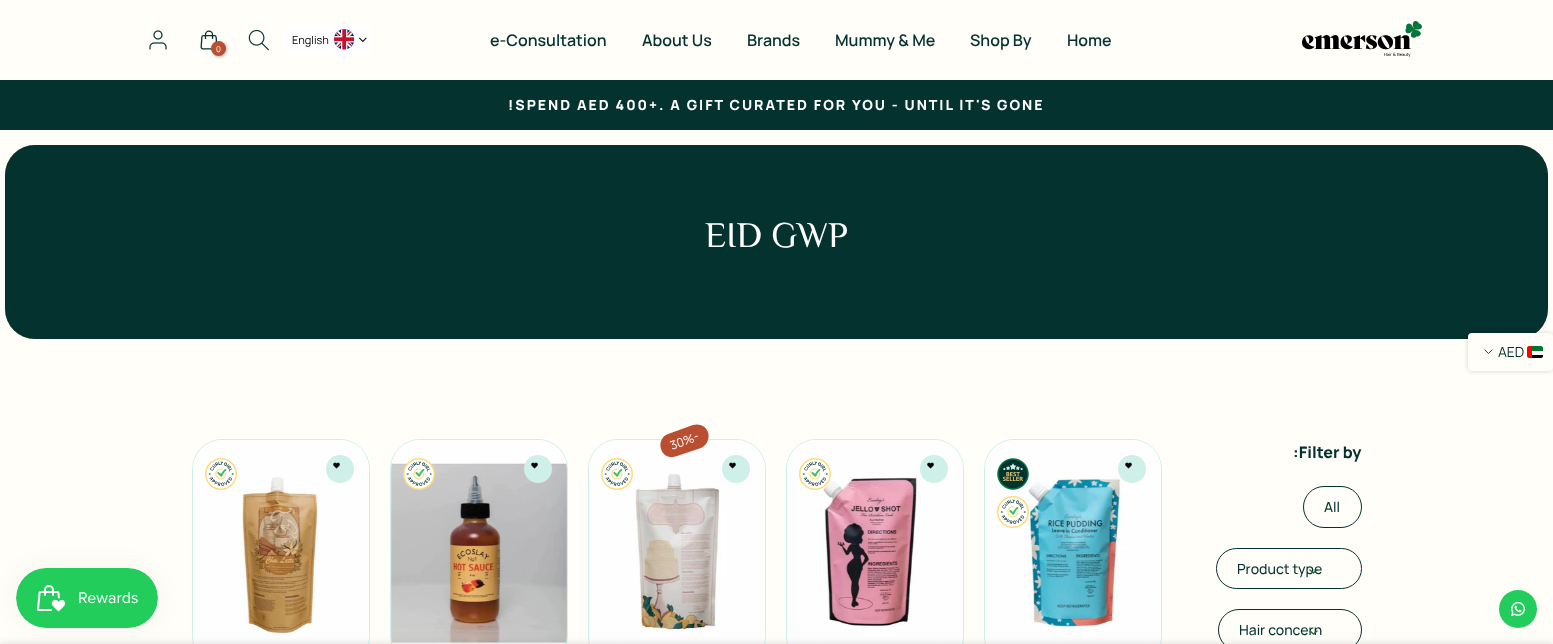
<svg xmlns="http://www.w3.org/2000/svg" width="1553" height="644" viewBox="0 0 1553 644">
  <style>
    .t1 { font: 200 11px Manrope; fill: #000; }
    .t2 { font: 200 8px Manrope; fill: #fff; }
    .t3 { font: 600 16px Manrope; fill: #04322f; }
    .t4 { font: 800 14px Manrope; letter-spacing: 2px; fill: #fff; }
    .t5 { font: 36px El Messiri; fill: #fff; }
    .t6 { font: 200 12px Manrope; fill: #fff; }
    .t7 { font: 800 16px Manrope; fill: #04322f; }
    .t8 { font: 500 14px Manrope; fill: #04322f; }
    .t9 { font: 200 14px Manrope; fill: #04322f; }
  </style>
  <rect width="100%" height="100%" fill="#fffef8"/>
  <rect x="284" y="23" width="86" height="33" fill="#fff"/>
  <text x="292" y="44" class="t1">English</text>
  <image x="334" y="29" width="20" height="21" href="images/1.png"/>
  <image x="359" y="37" width="8" height="5" href="images/2.png"/>
  <image x="149" y="30" width="18" height="20" href="images/3.png"/>
  <image x="200" y="30" width="18" height="20" href="images/4.png"/>
  <rect x="212" y="42" width="15" height="15" rx="7.5" fill="#0000004d" filter="blur(1.5px)"/>
  <circle cx="218.5" cy="48.5" r="7.5" fill="#b94e31"/>
  <text x="216" y="52" class="t2">0</text>
  <image x="248" y="29" width="21" height="22" href="images/5.png"/>
  <text x="490" y="46" class="t3">e-Consultation</text>
  <text x="642" y="46" class="t3">About Us</text>
  <text x="747" y="46" class="t3">Brands</text>
  <text x="835" y="46" class="t3">Mummy &amp; Me</text>
  <text x="970" y="46" class="t3">Shop By</text>
  <text x="1067" y="46" class="t3">Home</text>
  <image x="1302" y="21" width="120" height="36" href="images/6.png"/>
  <rect x="0" y="80" width="1553" height="50" fill="#04322f"/>
  <text x="508" y="110" class="t4">!SPEND AED 400+. A GIFT CURATED FOR YOU - UNTIL IT'S GONE</text>
  <image x="5" y="145" width="1543" height="194" href="images/7.png"/>
  <rect x="5" y="145" width="1543" height="194" rx="30" fill="#04322f"/>
  <text x="705" y="247" class="t5">EID GWP</text>
  <rect x="192.5" y="439.5" width="177" height="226" rx="29.5" fill="none" stroke="#cef0e9"/>
  <image x="193" y="440" width="176" height="204" href="images/8.png"/>
  <image x="205" y="458" width="32" height="32" href="images/9.png"/>
  <circle cx="340" cy="469" r="14" fill="#cef0e9"/>
  <image x="333" y="462" width="7" height="7" href="images/10.png"/>
  <rect x="390.5" y="439.5" width="177" height="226" rx="29.5" fill="none" stroke="#cef0e9"/>
  <image x="391" y="440" width="176" height="204" href="images/11.png"/>
  <image x="403" y="458" width="32" height="32" href="images/12.png"/>
  <circle cx="538" cy="469" r="14" fill="#cef0e9"/>
  <image x="531" y="462" width="7" height="7" href="images/10.png"/>
  <rect x="588.5" y="439.5" width="177" height="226" rx="29.5" fill="none" stroke="#cef0e9"/>
  <image x="589" y="440" width="176" height="204" href="images/13.png"/>
  <path d="M668 434L693 425C699 423 706 426 708 432C710 439 707 445 701 448L677 456C670 459 663 456 661 449C659 443 662 436 668 434Z" fill="#b94e31"/>
  <text x="672" y="450" transform="rotate(-20 672 450)" class="t6">30%</text>
  <text x="695" y="441" transform="rotate(-20 695 441)" class="t6">-</text>
  <image x="601" y="458" width="32" height="32" href="images/9.png"/>
  <circle cx="736" cy="469" r="14" fill="#cef0e9"/>
  <image x="729" y="462" width="7" height="7" href="images/10.png"/>
  <rect x="786.5" y="439.5" width="177" height="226" rx="29.5" fill="none" stroke="#cef0e9"/>
  <image x="787" y="440" width="176" height="204" href="images/14.png"/>
  <image x="799" y="458" width="32" height="32" href="images/15.png"/>
  <circle cx="934" cy="469" r="14" fill="#cef0e9"/>
  <image x="927" y="462" width="7" height="7" href="images/10.png"/>
  <rect x="984.5" y="439.5" width="177" height="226" rx="29.5" fill="none" stroke="#cef0e9"/>
  <image x="985" y="440" width="176" height="204" href="images/16.png"/>
  <image x="997" y="458" width="32" height="32" href="images/17.png"/>
  <image x="997" y="496" width="32" height="32" href="images/18.png"/>
  <circle cx="1132" cy="469" r="14" fill="#cef0e9"/>
  <image x="1125" y="462" width="7" height="7" href="images/10.png"/>
  <text x="1293" y="458" class="t7">:Filter by</text>
  <rect x="1303.5" y="486.5" width="58" height="41" rx="20.5" fill="none" stroke="#04322f"/>
  <text x="1324" y="512" class="t8">All</text>
  <rect x="1216.5" y="548.5" width="145" height="40" rx="20" fill="none" stroke="#04322f"/>
  <text x="1237" y="574" class="t8">Product type</text>
  <image x="1309" y="569" width="9" height="5" href="images/19.png"/>
  <rect x="1218.5" y="609.5" width="143" height="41" rx="20.5" fill="none" stroke="#04322f"/>
  <text x="1239" y="635" class="t8">Hair concern</text>
  <image x="1309" y="630" width="9" height="5" href="images/20.png"/>
  <rect x="1468" y="333" width="85" height="38" rx="4" fill="#0000002b" filter="blur(2.5px)"/>
  <rect x="1468" y="333" width="85" height="38" rx="4" fill="#fffef8"/>
  <path d="M1492 350L1488.5 353.5L1485 350" fill="none" stroke="#04322f" stroke-width="0.9" stroke-linecap="square"/>
  <text x="1498" y="357" class="t9">AED</text>
  <path d="M1529 346H1532V358H1529C1528 358 1527 357 1527 356V348C1527 347 1528 346 1529 346Z" fill="#f00"/>
  <path d="M1532 355H1543V356C1543 357 1542 358 1541 358H1532Z" fill="#000"/>
  <rect x="1532" y="351" width="11" height="4" fill="#fff"/>
  <path d="M1532 346H1541C1542 346 1543 347 1543 348V351H1532Z" fill="#00732f"/>
  <rect x="16" y="568" width="142" height="60" rx="30" fill="#0000000d" filter="blur(12.5px)"/>
  <image x="16" y="568" width="142" height="60" href="images/21.png"/>
  <circle cx="1518" cy="609" r="19" fill="#22cd5b"/>
  <image x="1511" y="602" width="14" height="14" href="images/22.png"/>
  <rect x="0" y="644" width="1553" height="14" fill="#00000024" filter="blur(4.5px)"/>
</svg>
